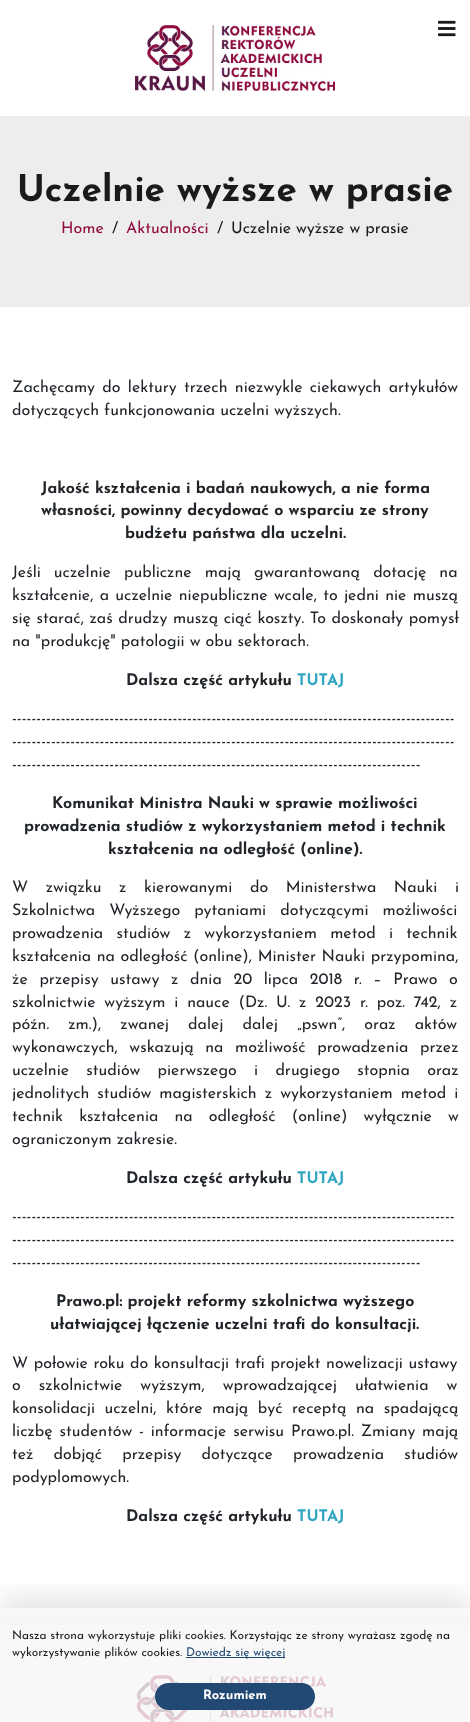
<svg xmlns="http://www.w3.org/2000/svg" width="470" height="1722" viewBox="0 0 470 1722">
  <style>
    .t1 { font: bold 36.75px Josefin Sans; fill: #1a1a1a; }
    .t2 { font: 16px Josefin Sans; fill: #910c3f; }
    .t3 { font: 16px Josefin Sans; fill: #1a1a1a; }
    .t4 { font: 16px Josefin Sans; fill: #212529; }
    .t5 { font: bold 16px Josefin Sans; fill: #212529; }
    .t6 { font: bold 16px Josefin Sans; fill: #32a6c3; }
    .t7 { font: 12px Josefin Sans; fill: #1a1a1a; }
    .t8 { font: 12px Josefin Sans; fill: #214973; }
    .t9 { font: bold 13px Josefin Sans; fill: #fff; }
  </style>
  <defs>
    <clipPath id="clip1"><rect x="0" y="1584" width="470" height="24"/></clipPath>
  </defs>
  <rect width="100%" height="100%" fill="#fff"/>
  <rect x="0" y="1608" width="470" height="7" fill="#f9f9f9"/>
  <image x="135" y="25" width="200" height="66" href="images/1.png"/>
  <image x="438" y="20" width="18" height="17" href="images/2.png"/>
  <rect x="0" y="116" width="470" height="191" fill="#ededed"/>
  <text x="17" y="201" class="t1">Uczelnie wyższe w prasie</text>
  <text x="61" y="233" class="t2">Home</text>
  <text x="112" y="233" class="t3">/</text>
  <text x="126" y="233" class="t2">Aktualności</text>
  <text x="217" y="233" class="t3">/</text>
  <text x="231" y="233" class="t3">Uczelnie wyższe w prasie</text>
  <rect x="0" y="1615" width="470" height="10" fill="#f6f6f6"/>
  <text x="12" y="392" word-spacing="2.25" class="t4">Zachęcamy do lektury trzech niezwykle ciekawych artykułów</text>
  <text x="12" y="415" class="t4">dotyczących funkcjonowania uczelni wyższych.</text>
  <text x="41" y="493" class="t5">Jakość kształcenia i badań naukowych, a nie forma</text>
  <text x="41" y="515" class="t5">własności, powinny decydować o wsparciu ze strony</text>
  <text x="125" y="538" class="t5">budżetu państwa dla uczelni.</text>
  <text x="12" y="577" word-spacing="8" class="t4">Jeśli uczelnie publiczne mają gwarantowaną dotację na</text>
  <text x="12" y="600" word-spacing="1.25" class="t4">kształcenie, a uczelnie niepubliczne wcale, to jedni nie muszą</text>
  <text x="12" y="623" word-spacing="0.5" class="t4">się starać, zaś drudzy muszą ciąć koszty. To doskonały pomysł</text>
  <text x="12" y="646" class="t4">na "produkcję" patologii w obu sektorach.</text>
  <text x="126" y="685" class="t5">Dalsza część artykułu</text>
  <text x="297" y="685" class="t6">TUTAJ</text>
  <text x="12" y="723" class="t4">-------------------------------------------------------------------------------------------</text>
  <text x="12" y="746" class="t4">-------------------------------------------------------------------------------------------</text>
  <text x="12" y="769" class="t4">------------------------------------------------------------------------------------</text>
  <text x="52" y="808" class="t5">Komunikat Ministra Nauki w sprawie możliwości</text>
  <text x="24" y="831" class="t5">prowadzenia studiów z wykorzystaniem metod i technik</text>
  <text x="108" y="854" class="t5">kształcenia na odległość (online).</text>
  <text x="12" y="892" word-spacing="12.5" class="t4">W związku z kierowanymi do Ministerstwa Nauki i</text>
  <text x="12" y="915" word-spacing="9" class="t4">Szkolnictwa Wyższego pytaniami dotyczącymi możliwości</text>
  <text x="12" y="938" word-spacing="8.25" class="t4">prowadzenia studiów z wykorzystaniem metod i technik</text>
  <text x="12" y="961" word-spacing="0.5" class="t4">kształcenia na odległość (online), Minister Nauki przypomina,</text>
  <text x="12" y="984" word-spacing="6.6" class="t4">że przepisy ustawy z dnia 20 lipca 2018 r. – Prawo o</text>
  <text x="12" y="1007" word-spacing="3.75" class="t4">szkolnictwie wyższym i nauce (Dz. U. z 2023 r. poz. 742, z</text>
  <text x="12" y="1029" word-spacing="14" class="t4">późn. zm.), zwanej dalej dalej „pswn”, oraz aktów</text>
  <text x="12" y="1052" word-spacing="6.5" class="t4">wykonawczych, wskazują na możliwość prowadzenia przez</text>
  <text x="12" y="1075" word-spacing="12.25" class="t4">uczelnie studiów pierwszego i drugiego stopnia oraz</text>
  <text x="12" y="1098" word-spacing="3" class="t4">jednolitych studiów magisterskich z wykorzystaniem metod i</text>
  <text x="12" y="1121" word-spacing="11" class="t4">technik kształcenia na odległość (online) wyłącznie w</text>
  <text x="12" y="1144" class="t4">ograniczonym zakresie.</text>
  <text x="126" y="1183" class="t5">Dalsza część artykułu</text>
  <text x="297" y="1183" class="t6">TUTAJ</text>
  <text x="12" y="1221" class="t4">-------------------------------------------------------------------------------------------</text>
  <text x="12" y="1244" class="t4">-------------------------------------------------------------------------------------------</text>
  <text x="12" y="1267" class="t4">------------------------------------------------------------------------------------</text>
  <text x="56" y="1306" class="t5">Prawo.pl: projekt reformy szkolnictwa wyższego</text>
  <text x="50" y="1329" class="t5">ułatwiającej łączenie uczelni trafi do konsultacji.</text>
  <text x="12" y="1368" word-spacing="0.5" class="t4">W połowie roku do konsultacji trafi projekt nowelizacji ustawy</text>
  <text x="12" y="1390" word-spacing="13" class="t4">o szkolnictwie wyższym, wprowadzającej ułatwienia w</text>
  <text x="12" y="1413" word-spacing="4.5" class="t4">konsolidacji uczelni, które mają być receptą na spadającą</text>
  <text x="12" y="1436" word-spacing="1.75" class="t4">liczbę studentów - informacje serwisu Prawo.pl. Zmiany mają</text>
  <text x="12" y="1459" word-spacing="15" class="t4">też dobjąć przepisy dotyczące prowadzenia studiów</text>
  <text x="12" y="1482" class="t4">podyplomowych.</text>
  <text x="126" y="1521" class="t5">Dalsza część artykułu</text>
  <text x="297" y="1521" class="t6">TUTAJ</text>
  <rect x="0" y="1625" width="470" height="97" fill="#f8f8f8"/>
  <image x="136" y="1675" width="197" height="47" href="images/3.png"/>
  <g clip-path="url(#clip1)">
    <rect x="0" y="1600" width="470" height="114" fill="#00000021" filter="blur(16px)"/>
  </g>
  <text x="12" y="1639" class="t7">Nasza strona wykorzystuje pliki cookies. Korzystając ze strony wyrażasz zgodę na</text>
  <text x="12" y="1656" class="t7">wykorzystywanie plików cookies.</text>
  <rect x="186" y="1657" width="99" height="1" fill="#214973"/>
  <text x="186" y="1656" class="t8">Dowiedz się więcej</text>
  <rect x="155" y="1683" width="160" height="27" rx="13.5" fill="#214973"/>
  <text x="203" y="1699" class="t9">Rozumiem</text>
</svg>
